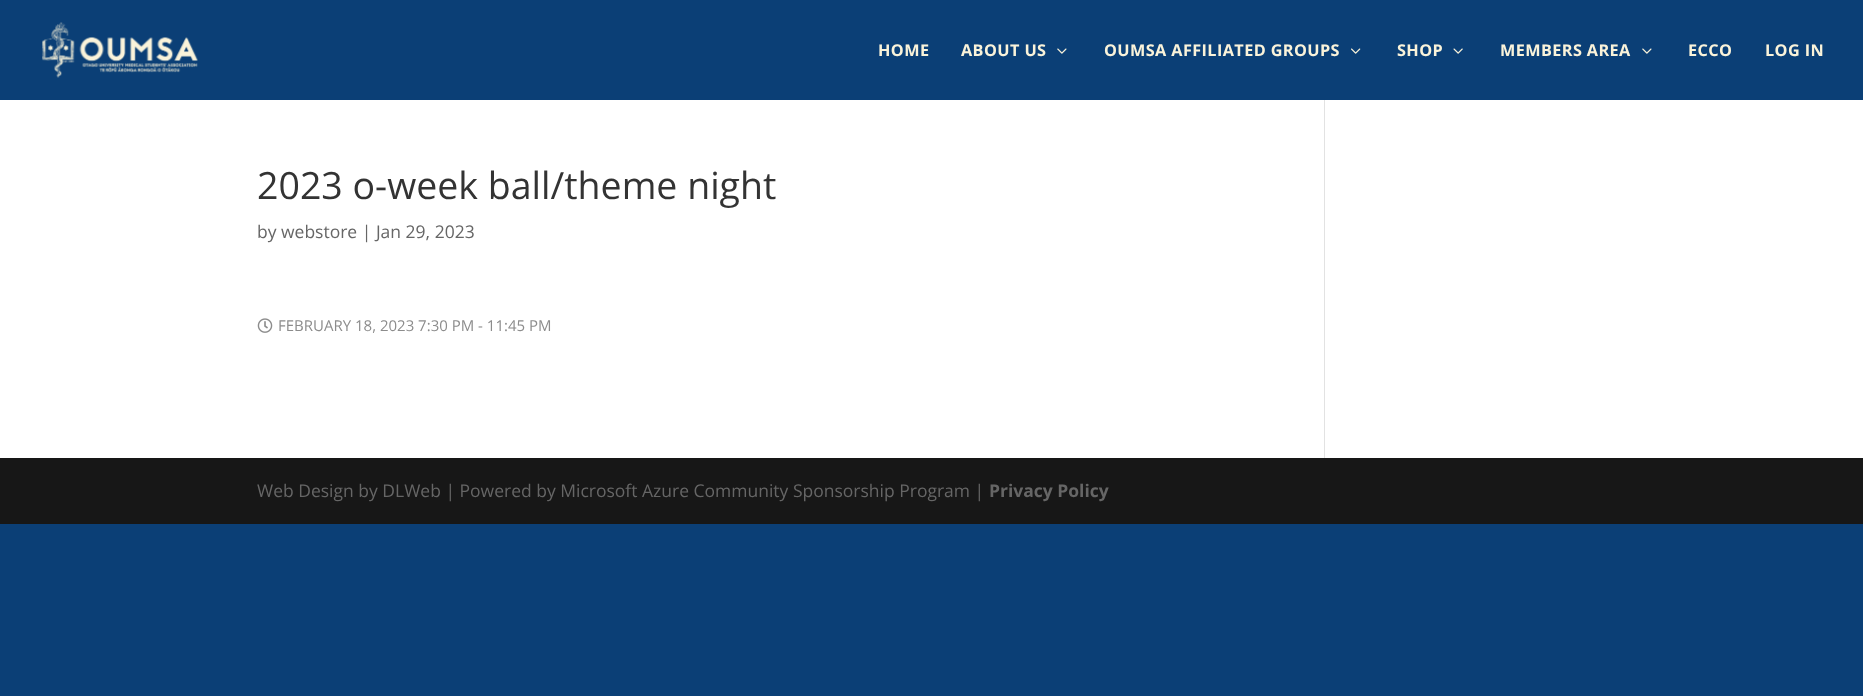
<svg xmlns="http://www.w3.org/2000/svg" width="1863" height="696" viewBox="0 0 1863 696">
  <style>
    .t1 { font: bold 16.25px Open Sans; letter-spacing: 0.4px; fill: #faf3da; }
    .t2 { font: 37.5px Open Sans; fill: #333; }
    .t3 { font: 17.5px Open Sans; fill: #666; }
    .t4 { font: 15px Open Sans; fill: #8c8c8c; }
    .t5 { font: bold 17.5px Open Sans; fill: #666; }
  </style>
  <rect width="100%" height="100%" fill="#0b3f76"/>
  <rect x="0" y="100" width="1863" height="358" fill="#fff"/>
  <rect x="1324" y="94" width="1" height="364" fill="#e2e2e2"/>
  <rect x="1324" y="94" width="1" height="6" fill="#0b3f76"/>
  <image x="42" y="22" width="156" height="56" href="images/1.png"/>
  <text x="878" y="56" class="t1">HOME</text>
  <text x="961" y="56" class="t1">ABOUT US</text>
  <image x="1057" y="48" width="10" height="6" href="images/2.png"/>
  <text x="1104" y="56" class="t1">OUMSA AFFILIATED GROUPS</text>
  <image x="1351" y="48" width="10" height="6" href="images/3.png"/>
  <text x="1397" y="56" class="t1">SHOP</text>
  <image x="1453" y="48" width="10" height="6" href="images/4.png"/>
  <text x="1500" y="56" class="t1">MEMBERS AREA</text>
  <image x="1642" y="48" width="10" height="6" href="images/2.png"/>
  <text x="1688" y="56" class="t1">ECCO</text>
  <text x="1765" y="56" class="t1">LOG IN</text>
  <text x="257" y="199" class="t2">2023 o-week ball/theme night</text>
  <text x="257" y="238" class="t3">by webstore | Jan 29, 2023</text>
  <image x="257" y="318" width="16" height="15" href="images/5.png"/>
  <text x="278" y="331" class="t4">FEBRUARY 18, 2023 7:30 PM - 11:45 PM</text>
  <rect x="0" y="458" width="1863" height="66" fill="#171717"/>
  <text x="257" y="497" class="t3">Web Design by DLWeb | Powered by Microsoft Azure Community Sponsorship Program |</text>
  <text x="989" y="497" class="t5">Privacy Policy</text>
</svg>
